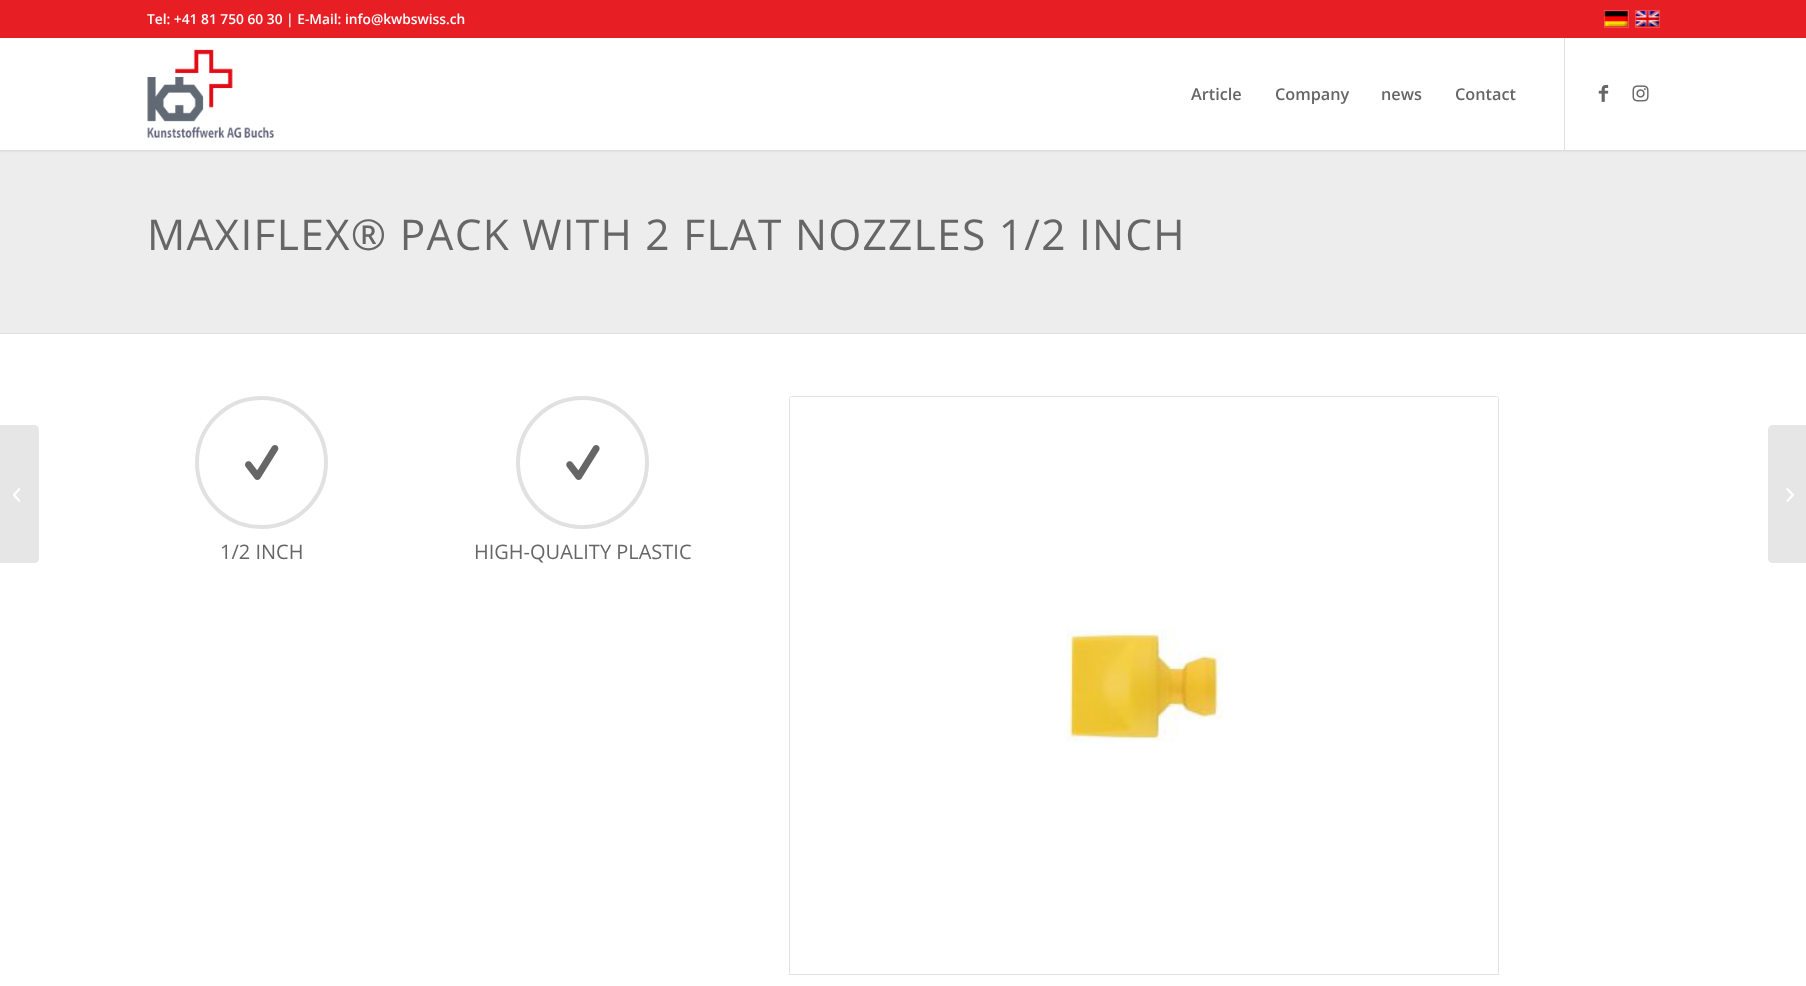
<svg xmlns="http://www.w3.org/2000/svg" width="1806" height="986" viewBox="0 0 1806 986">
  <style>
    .t1 { font: 600 13.75px Open Sans; fill: #fff; }
    .t2 { font: 600 16.25px Open Sans; fill: #666; }
    .t3 { font: 42.5px Open Sans; letter-spacing: 1.25px; fill: #666; }
    .t4 { font: 20px Open Sans; fill: #666; }
  </style>
  <rect width="100%" height="100%" fill="#fff"/>
  <rect x="0" y="150" width="1806" height="183" fill="#ededed"/>
  <rect x="-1" y="-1" width="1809" height="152" fill="#0000001a" filter="blur(1px)"/>
  <rect x="0" y="0" width="1806" height="38" fill="#e71f25"/>
  <text x="147" y="24" class="t1">Tel: +41 81 750 60 30 | E-Mail: info@kwbswiss.ch</text>
  <rect x="1604.5" y="10.5" width="24" height="17" fill="none" stroke="#ec4c51"/>
  <image x="1604" y="11" width="24" height="16" href="images/1.png"/>
  <rect x="1635.5" y="10.5" width="24" height="17" fill="none" stroke="#ec4c51"/>
  <image x="1635" y="11" width="25" height="16" href="images/2.png"/>
  <rect x="0" y="38" width="1806" height="112" fill="#fff"/>
  <image x="147" y="49" width="127" height="89" href="images/3.png"/>
  <rect x="1564" y="38" width="1" height="112" fill="#e1e1e1"/>
  <text x="1191" y="100" class="t2">Article</text>
  <text x="1275" y="100" class="t2">Company</text>
  <text x="1381" y="100" class="t2">news</text>
  <text x="1455" y="100" class="t2">Contact</text>
  <image x="1598" y="85" width="11" height="17" href="images/4.png"/>
  <image x="1632" y="85" width="17" height="17" href="images/5.png"/>
  <path d="M0 425H34C37 425 39 427 39 430V558C39 561 37 563 34 563H0Z" fill="#e6e6e6"/>
  <image x="13" y="488" width="7" height="14" href="images/6.png"/>
  <text x="147" y="250" class="t3">MAXIFLEX® PACK WITH 2 FLAT NOZZLES 1/2 INCH</text>
  <rect x="0" y="333" width="1806" height="1" fill="#e1e1e1"/>
  <circle cx="261.5" cy="462.5" r="64.5" fill="none" stroke="#e1e1e1" stroke-width="4"/>
  <image x="245" y="445" width="34" height="35" href="images/7.png"/>
  <text x="220" y="559" class="t4">1/2 INCH</text>
  <circle cx="582.5" cy="462.5" r="64.5" fill="none" stroke="#e1e1e1" stroke-width="4"/>
  <image x="566" y="445" width="34" height="35" href="images/8.png"/>
  <text x="474" y="559" class="t4">HIGH-QUALITY PLASTIC</text>
  <path d="M791.5 396.5H1496.5C1497.5 396.5 1498.5 397.5 1498.5 398.5V974.5H789.5V398.5C789.5 397.5 790.5 396.5 791.5 396.5Z" fill="none" stroke="#e1e1e1"/>
  <image x="1065" y="629" width="159" height="114" href="images/9.png"/>
  <path d="M1773 425H1806V563H1773C1770 563 1768 561 1768 558V430C1768 427 1770 425 1773 425Z" fill="#e6e6e6"/>
  <image x="1786" y="488" width="8" height="14" href="images/10.png"/>
</svg>
